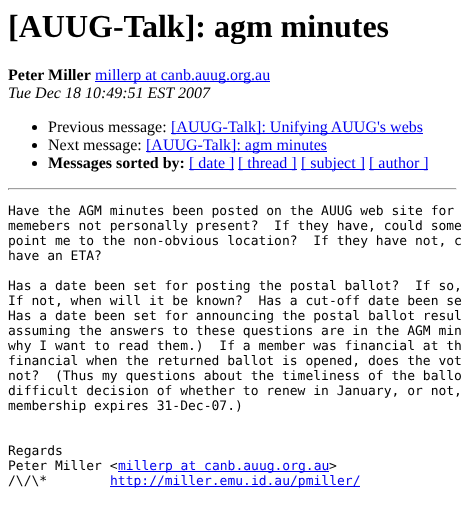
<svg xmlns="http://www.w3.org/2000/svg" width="465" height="509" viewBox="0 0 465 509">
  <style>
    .t1 { font: bold 32px Liberation Serif; fill: #000; }
    .t2 { font: bold 16px Liberation Serif; fill: #000; }
    .t3 { font: 16px Liberation Serif; fill: #00e; }
    .t4 { font: italic 16px Liberation Serif; fill: #000; }
    .t5 { font: 16px Liberation Serif; fill: #000; }
    .t6 { font: 13px DejaVu Sans Mono; fill: #000; }
    .t7 { font: 13px DejaVu Sans Mono; fill: #00e; }
  </style>
  <rect width="100%" height="100%" fill="#fff"/>
  <text x="8" y="37" class="t1">[AUUG-Talk]: agm minutes</text>
  <text x="8" y="80" class="t2">Peter Miller</text>
  <rect x="95" y="81" width="175" height="1" fill="#00e"/>
  <text x="95" y="80" class="t3">millerp at canb.auug.org.au</text>
  <text x="8" y="98" class="t4">Tue Dec 18 10:49:51 EST 2007</text>
  <circle cx="34.5" cy="127.5" r="2.5" fill="#000"/>
  <text x="48" y="132" class="t5">Previous message:</text>
  <rect x="171" y="133" width="252" height="1" fill="#00e"/>
  <text x="171" y="132" class="t3">[AUUG-Talk]: Unifying AUUG's webs</text>
  <circle cx="34.5" cy="145.5" r="2.5" fill="#000"/>
  <text x="48" y="150" class="t5">Next message:</text>
  <rect x="146" y="151" width="181" height="1" fill="#00e"/>
  <text x="146" y="150" class="t3">[AUUG-Talk]: agm minutes</text>
  <circle cx="34.5" cy="163.5" r="2.5" fill="#000"/>
  <text x="48" y="168" class="t2">Messages sorted by:</text>
  <rect x="189" y="169" width="45" height="1" fill="#00e"/>
  <text x="189" y="168" class="t3">[ date ]</text>
  <rect x="238" y="169" width="59" height="1" fill="#00e"/>
  <text x="238" y="168" class="t3">[ thread ]</text>
  <rect x="301" y="169" width="64" height="1" fill="#00e"/>
  <text x="301" y="168" class="t3">[ subject ]</text>
  <rect x="369" y="169" width="59" height="1" fill="#00e"/>
  <text x="369" y="168" class="t3">[ author ]</text>
  <rect x="8" y="188" width="449" height="1" fill="#9f9f9f"/>
  <rect x="456" y="188" width="1" height="2" fill="#eee"/>
  <rect x="8" y="189" width="449" height="1" fill="#eee"/>
  <rect x="8" y="188" width="1" height="2" fill="#9f9f9f"/>
  <text x="8" y="215" class="t6">Have the AGM minutes been posted on the AUUG web site for</text>
  <text x="8" y="230" class="t6" xml:space="preserve">memebers not personally present?  If they have, could some</text>
  <text x="8" y="245" class="t6" xml:space="preserve">point me to the non-obvious location?  If they have not, c</text>
  <text x="8" y="260" class="t6">have an ETA?</text>
  <text x="8" y="290" class="t6" xml:space="preserve">Has a date been set for posting the postal ballot?  If so,</text>
  <text x="8" y="305" class="t6" xml:space="preserve">If not, when will it be known?  Has a cut-off date been se</text>
  <text x="8" y="320" class="t6">Has a date been set for announcing the postal ballot resul</text>
  <text x="8" y="335" class="t6">assuming the answers to these questions are in the AGM min</text>
  <text x="8" y="350" class="t6" xml:space="preserve">why I want to read them.)  If a member was financial at th</text>
  <text x="8" y="365" class="t6">financial when the returned ballot is opened, does the vot</text>
  <text x="8" y="380" class="t6" xml:space="preserve">not?  (Thus my questions about the timeliness of the ballo</text>
  <text x="8" y="395" class="t6">difficult decision of whether to renew in January, or not,</text>
  <text x="8" y="410" class="t6">membership expires 31-Dec-07.)</text>
  <text x="8" y="455" class="t6">Regards</text>
  <text x="8" y="470" class="t6">Peter Miller &lt;</text>
  <rect x="118" y="471" width="211" height="1" fill="#00e"/>
  <text x="118" y="470" class="t7">millerp at canb.auug.org.au</text>
  <text x="329" y="470" class="t6">&gt;</text>
  <text x="8" y="485" class="t6">/\/\*</text>
  <rect x="110" y="486" width="250" height="1" fill="#00e"/>
  <text x="110" y="485" class="t7">http://miller.emu.id.au/pmiller/</text>
</svg>
